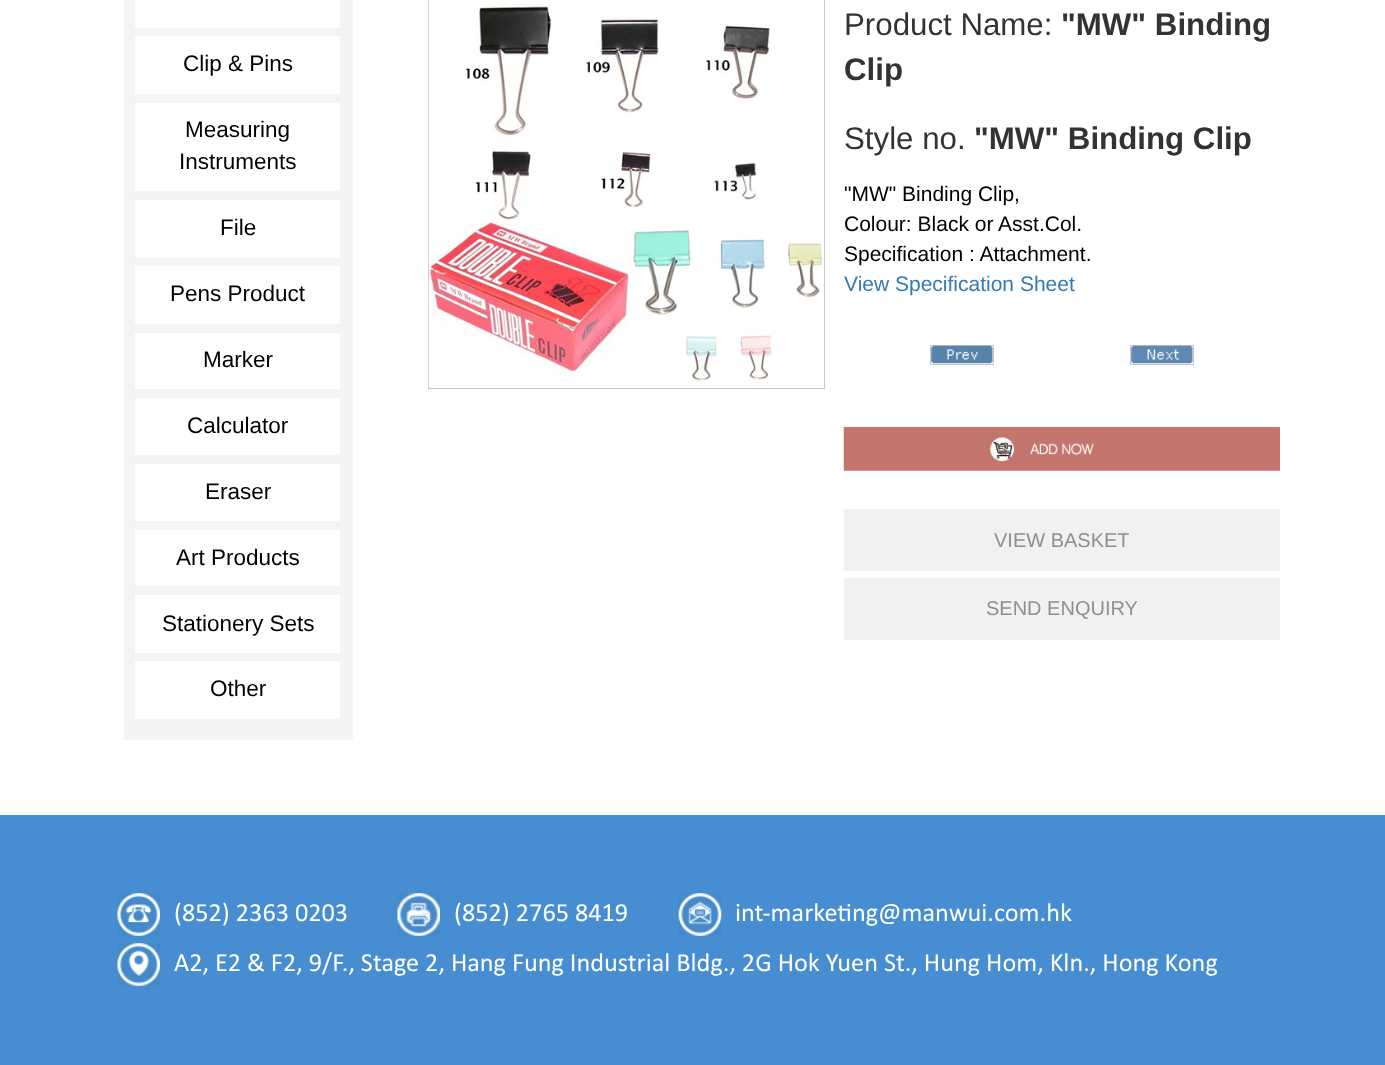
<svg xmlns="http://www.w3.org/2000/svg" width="1385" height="1065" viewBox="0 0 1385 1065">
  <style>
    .t1 { font: 22.5px Liberation Sans; fill: #000; }
    .t2 { font: 31.25px Liberation Sans; fill: #333; }
    .t3 { font: bold 31.25px Liberation Sans; fill: #333; }
    .t4 { font: 21px Liberation Sans; fill: #000; }
    .t5 { font: 21px Liberation Sans; fill: #337ab7; }
    .t6 { font: 20px Liberation Sans; fill: #8f8f8f; }
    .t7 { font: 26.25px Calibri; fill: #fff; }
  </style>
  <rect width="100%" height="100%" fill="#fff"/>
  <rect x="124" y="0" width="229" height="740" fill="#f3f4f6"/>
  <rect x="135" y="0" width="205" height="28" fill="#fff"/>
  <rect x="135" y="36" width="205" height="58" fill="#fff"/>
  <text x="183" y="71" class="t1">Clip &amp; Pins</text>
  <rect x="135" y="103" width="205" height="88" fill="#fff"/>
  <text x="185" y="137" class="t1">Measuring</text>
  <text x="179" y="169" class="t1">Instruments</text>
  <rect x="135" y="200" width="205" height="58" fill="#fff"/>
  <text x="220" y="235" class="t1">File</text>
  <rect x="135" y="266" width="205" height="58" fill="#fff"/>
  <text x="170" y="301" class="t1">Pens Product</text>
  <rect x="135" y="333" width="205" height="56" fill="#fff"/>
  <text x="203" y="367" class="t1">Marker</text>
  <rect x="135" y="398" width="205" height="57" fill="#fff"/>
  <text x="187" y="433" class="t1">Calculator</text>
  <rect x="135" y="464" width="205" height="57" fill="#fff"/>
  <text x="205" y="499" class="t1">Eraser</text>
  <rect x="135" y="530" width="205" height="56" fill="#fff"/>
  <text x="176" y="565" class="t1">Art Products</text>
  <rect x="135" y="595" width="205" height="58" fill="#fff"/>
  <text x="162" y="631" class="t1">Stationery Sets</text>
  <rect x="135" y="661" width="205" height="58" fill="#fff"/>
  <text x="210" y="696" class="t1">Other</text>
  <rect x="428.5" y="-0.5" width="396" height="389" fill="none" stroke="#c6c6c6"/>
  <image x="428" y="0" width="394" height="387" href="images/1.png"/>
  <text x="844" y="35" class="t2">Product Name:</text>
  <text x="1061" y="35" class="t3">"MW" Binding</text>
  <text x="844" y="80" class="t3">Clip</text>
  <text x="844" y="149" class="t2">Style no.</text>
  <text x="974" y="149" class="t3">"MW" Binding Clip</text>
  <text x="844" y="201" class="t4">"MW" Binding Clip,</text>
  <text x="844" y="231" class="t4">Colour: Black or Asst.Col.</text>
  <text x="844" y="261" class="t4">Specification : Attachment.</text>
  <text x="844" y="291" class="t5">View Specification Sheet</text>
  <rect x="930.5" y="345.5" width="63" height="19" fill="none" stroke="#c6c6c6"/>
  <image x="931" y="345" width="62" height="19" href="images/2.png"/>
  <rect x="1130.5" y="345.5" width="63" height="19" fill="none" stroke="#c6c6c6"/>
  <image x="1131" y="345" width="62" height="19" href="images/3.png"/>
  <image x="843" y="427" width="437" height="44" href="images/4.png"/>
  <rect x="844" y="509" width="436" height="62" fill="#f1f1f1"/>
  <text x="994" y="547" class="t6">VIEW BASKET</text>
  <rect x="844" y="578" width="436" height="62" fill="#f1f1f1"/>
  <text x="986" y="615" class="t6">SEND ENQUIRY</text>
  <rect x="0" y="815" width="1385" height="250" fill="#478dd2"/>
  <image x="117" y="893" width="43" height="43" href="images/5.png"/>
  <text x="174" y="921" class="t7">(852) 2363 0203</text>
  <image x="397" y="893" width="43" height="43" href="images/6.png"/>
  <text x="454" y="921" class="t7">(852) 2765 8419</text>
  <image x="678" y="893" width="44" height="43" href="images/7.png"/>
  <text x="735" y="921" class="t7">int-marketing@manwui.com.hk</text>
  <image x="117" y="943" width="43" height="43" href="images/8.png"/>
  <text x="174" y="971" class="t7">A2, E2 &amp; F2, 9/F., Stage 2, Hang Fung Industrial Bldg., 2G Hok Yuen St., Hung Hom, Kln., Hong Kong</text>
</svg>
